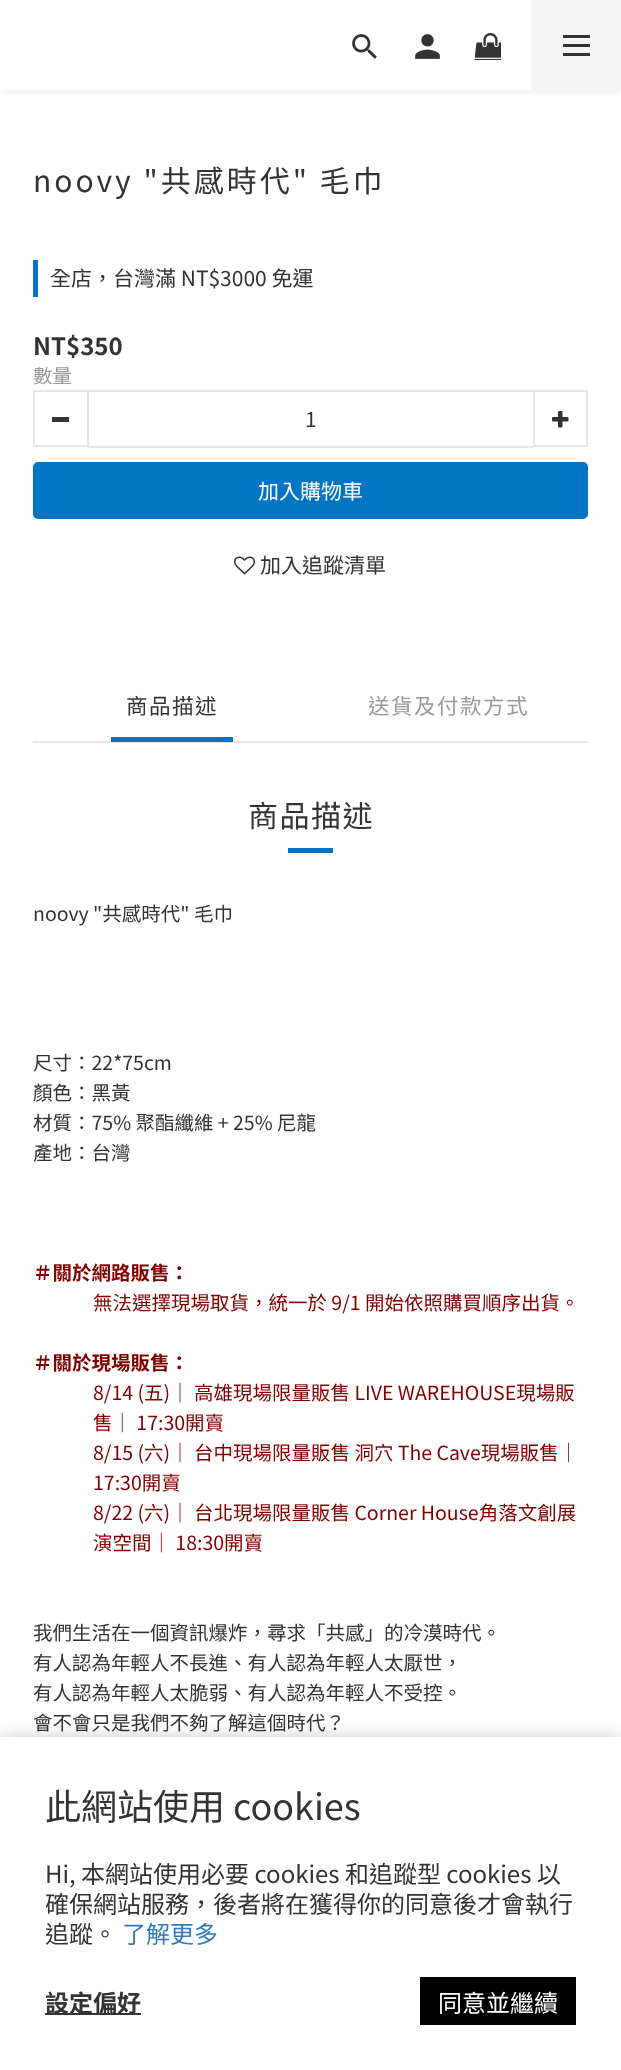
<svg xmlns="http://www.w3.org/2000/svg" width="621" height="2070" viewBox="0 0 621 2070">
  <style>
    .t1 { font: 30px Noto Sans TC; letter-spacing: 3px; fill: #333; }
    .t2 { font: 21px Noto Sans TC; fill: #333; }
    .t3 { font: bold 24px Noto Sans TC; fill: #333; }
    .t4 { font: 19.5px Noto Sans TC; fill: #999; }
    .t5 { font: 21px Noto Sans TC; fill: #fff; }
    .t6 { font: 21.5px Noto Sans TC; letter-spacing: 1.5px; fill: #333; }
    .t7 { font: 21.5px Noto Sans TC; letter-spacing: 1.5px; fill: #999; }
    .t8 { font: 30px Noto Sans TC; letter-spacing: 1.5px; fill: #333; }
    .t9 { font: 19.5px Noto Sans TC; fill: #333; }
    .t10 { font: bold 19.5px Noto Sans TC; fill: #800000; }
    .t11 { font: 19.5px Noto Sans TC; fill: #800000; }
    .t12 { font: 36px Noto Sans TC; fill: #333; }
    .t13 { font: 24px Noto Sans TC; fill: #333; }
    .t14 { font: 24px Noto Sans TC; fill: #337ab7; }
    .t15 { font: 24px Noto Sans TC; fill: #fff; }
  </style>
  <defs>
    <clipPath id="clip1"><rect x="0" y="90" width="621" height="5"/></clipPath>
  </defs>
  <rect width="100%" height="100%" fill="#fff"/>
  <g clip-path="url(#clip1)">
    <rect x="0" y="3" width="621" height="90" fill="#0000000f" filter="blur(4.5px)"/>
  </g>
  <image x="352" y="34" width="25" height="25" href="images/1.png"/>
  <image x="415" y="34" width="25" height="25" href="images/2.png"/>
  <image x="474" y="33" width="27" height="27" href="images/3.png"/>
  <rect x="531" y="0" width="90" height="90" fill="#f5f5f5"/>
  <rect x="563" y="44" width="27" height="3" fill="#333"/>
  <rect x="563" y="35" width="27" height="3" fill="#333"/>
  <rect x="563" y="53" width="27" height="3" fill="#333"/>
  <text x="33" y="192" class="t1">noovy "共感時代" 毛巾</text>
  <rect x="33" y="260" width="5" height="37" fill="#0374c4"/>
  <text x="50" y="286" class="t2">全店，台灣滿 NT$3000 免運</text>
  <text x="33" y="355" class="t3">NT$350</text>
  <text x="33" y="383" class="t4">數量</text>
  <rect x="87" y="390" width="447" height="2" fill="#e6e6e6"/>
  <rect x="87" y="446" width="447" height="2" fill="#e6e6e6"/>
  <rect x="34" y="391" width="54" height="55" fill="none" stroke="#e6e6e6" stroke-width="2"/>
  <rect x="52" y="417" width="17" height="5" fill="#333"/>
  <text x="305" y="427" class="t2">1</text>
  <rect x="534" y="391" width="53" height="55" fill="none" stroke="#e6e6e6" stroke-width="2"/>
  <image x="552" y="411" width="17" height="17" href="images/4.png"/>
  <rect x="33" y="462" width="555" height="57" rx="5" fill="#0374c4"/>
  <text x="258" y="499" class="t5">加入購物車</text>
  <image x="234" y="556" width="21" height="19" href="images/5.png"/>
  <text x="260" y="573" class="t2">加入追蹤清單</text>
  <rect x="33" y="741" width="555" height="2" fill="#e6e6e6"/>
  <text x="126" y="714" class="t6">商品描述</text>
  <rect x="111" y="737" width="122" height="5" fill="#0374c4"/>
  <text x="368" y="714" class="t7">送貨及付款方式</text>
  <text x="248" y="827" class="t8">商品描述</text>
  <rect x="288" y="848" width="45" height="5" fill="#0374c4"/>
  <text x="33" y="921" class="t9">noovy "共感時代" 毛巾</text>
  <text x="33" y="1070" class="t9">尺寸：22*75cm</text>
  <text x="33" y="1100" class="t9">顏色：黑黃</text>
  <text x="33" y="1130" class="t9">材質：75% 聚酯纖維 + 25% 尼龍</text>
  <text x="33" y="1160" class="t9">產地：台灣</text>
  <text x="33" y="1280" class="t10">＃關於網路販售：</text>
  <text x="93" y="1310" class="t11">無法選擇現場取貨，統一於 9/1 開始依照購買順序出貨。</text>
  <text x="33" y="1370" class="t10">＃關於現場販售：</text>
  <text x="93" y="1400" class="t11">8/14 (五)｜ 高雄現場限量販售 LIVE WAREHOUSE現場販</text>
  <text x="93" y="1430" class="t11">售｜ 17:30開賣</text>
  <text x="93" y="1460" class="t11">8/15 (六)｜ 台中現場限量販售 洞穴 The Cave現場販售｜</text>
  <text x="93" y="1490" class="t11">17:30開賣</text>
  <text x="93" y="1520" class="t11">8/22 (六)｜ 台北現場限量販售 Corner House角落文創展</text>
  <text x="93" y="1550" class="t11">演空間｜ 18:30開賣</text>
  <text x="33" y="1640" class="t9">我們生活在一個資訊爆炸，尋求「共感」的冷漠時代。</text>
  <text x="33" y="1670" class="t9">有人認為年輕人不長進、有人認為年輕人太厭世，</text>
  <text x="33" y="1700" class="t9">有人認為年輕人太脆弱、有人認為年輕人不受控。</text>
  <text x="33" y="1730" class="t9">會不會只是我們不夠了解這個時代？</text>
  <rect x="0" y="1745" width="621" height="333" fill="#00000080" filter="blur(11px)"/>
  <rect x="0" y="1737" width="621" height="333" fill="#fff"/>
  <text x="45" y="1820" class="t12">此網站使用 cookies</text>
  <text x="45" y="1883" class="t13">Hi, 本網站使用必要 cookies 和追蹤型 cookies 以</text>
  <text x="45" y="1913" class="t13">確保網站服務，後者將在獲得你的同意後才會執行</text>
  <text x="45" y="1943" class="t13">追蹤。</text>
  <text x="122" y="1943" class="t14">了解更多</text>
  <rect x="45" y="2013" width="96" height="2" fill="#333"/>
  <text x="45" y="2012" class="t3">設定偏好</text>
  <rect x="420" y="1977" width="156" height="48" fill="#000"/>
  <text x="438" y="2012" class="t15">同意並繼續</text>
</svg>
